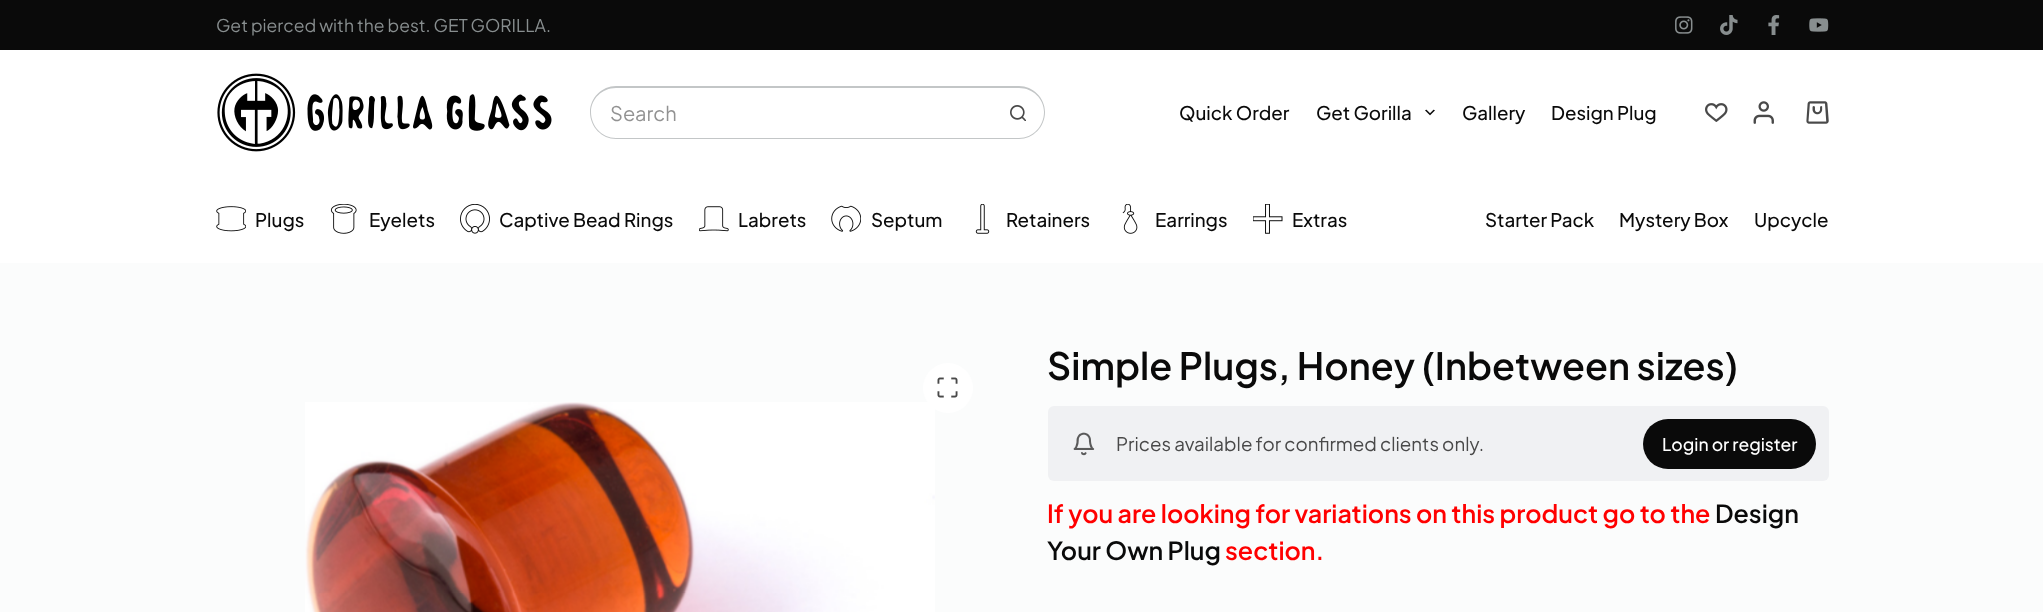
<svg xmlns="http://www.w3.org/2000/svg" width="2043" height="612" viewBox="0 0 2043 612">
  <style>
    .t1 { font: 17.5px Plus Jakarta Sans; fill: #888e8f; }
    .t2 { font: 20px Plus Jakarta Sans; fill: #929292; }
    .t3 { font: 500 18.75px Plus Jakarta Sans; fill: #0a0a0a; }
    .t4 { font: 600 37.5px Plus Jakarta Sans; fill: #0a0a0a; }
    .t5 { font: 18.75px Plus Jakarta Sans; fill: #494949; }
    .t6 { font: 500 17.5px Plus Jakarta Sans; fill: #fff; }
    .t7 { font: 600 25px Plus Jakarta Sans; fill: #f00; }
    .t8 { font: 600 25px Plus Jakarta Sans; fill: #0a0a0a; }
  </style>
  <rect width="100%" height="100%" fill="#fbfcfc"/>
  <rect x="0" y="0" width="2043" height="50" fill="#0a0a0a"/>
  <text x="216" y="32" class="t1">Get pierced with the best. GET GORILLA.</text>
  <image x="1675" y="16" width="18" height="18" href="images/1.png"/>
  <image x="1720" y="15" width="18" height="20" href="images/2.png"/>
  <image x="1768" y="15" width="12" height="20" href="images/3.png"/>
  <image x="1809" y="18" width="20" height="14" href="images/4.png"/>
  <rect x="0" y="50" width="2043" height="213" fill="#fff"/>
  <image x="217" y="73" width="335" height="79" href="images/5.png"/>
  <path d="M616 86H992V139H616C602 139 590 127 590 112C590 98 602 86 616 86ZM616 88H992V138H616C602 138 591 126 591 112C591 99 602 88 616 88Z" fill="#c3c6c7" fill-rule="evenodd"/>
  <text x="610" y="121" class="t2">Search</text>
  <path d="M992 86H1019C1033 86 1045 98 1045 112C1045 127 1033 139 1019 139H992ZM992 88H1019C1033 88 1044 99 1044 112C1044 126 1033 138 1019 138H992Z" fill="#c3c6c7" fill-rule="evenodd"/>
  <image x="1010" y="105" width="16" height="16" href="images/6.png"/>
  <path d="M1025 105.5C1028.5 108.5 1029.5 114.5 1026 118.5" fill="none" stroke="#fff" stroke-width="1.9" stroke-linecap="round"/>
  <text x="1179" y="120" class="t3">Quick Order</text>
  <text x="1316" y="120" class="t3">Get Gorilla</text>
  <image x="1425" y="109" width="10" height="7" href="images/7.png"/>
  <text x="1462" y="120" class="t3">Gallery</text>
  <text x="1551" y="120" class="t3">Design Plug</text>
  <image x="1705" y="103" width="23" height="19" href="images/8.png"/>
  <image x="1753" y="101" width="21" height="23" href="images/9.png"/>
  <image x="1806" y="101" width="23" height="23" href="images/10.png"/>
  <image x="216" y="206" width="30" height="26" href="images/11.png"/>
  <text x="255" y="227" class="t3">Plugs</text>
  <image x="330" y="204" width="27" height="30" href="images/12.png"/>
  <text x="369" y="227" class="t3">Eyelets</text>
  <image x="460" y="204" width="30" height="30" href="images/13.png"/>
  <text x="499" y="227" class="t3">Captive Bead Rings</text>
  <image x="699" y="206" width="30" height="26" href="images/14.png"/>
  <text x="738" y="227" class="t3">Labrets</text>
  <image x="831" y="205" width="30" height="27" href="images/15.png"/>
  <text x="871" y="227" class="t3">Septum</text>
  <image x="975" y="204" width="15" height="30" href="images/16.png"/>
  <text x="1006" y="227" class="t3">Retainers</text>
  <image x="1122" y="204" width="16" height="30" href="images/17.png"/>
  <text x="1155" y="227" class="t3">Earrings</text>
  <image x="1253" y="204" width="30" height="30" href="images/18.png"/>
  <text x="1292" y="227" class="t3">Extras</text>
  <text x="1485" y="227" class="t3">Starter Pack</text>
  <text x="1619" y="227" class="t3">Mystery Box</text>
  <text x="1754" y="227" class="t3">Upcycle</text>
  <image x="305" y="402" width="630" height="210" href="images/20.png"/>
  <circle cx="948" cy="388" r="25" fill="#fff"/>
  <image x="937" y="377" width="21" height="21" href="images/19.png"/>
  <text x="1047" y="380" class="t4">Simple Plugs, Honey (Inbetween sizes)</text>
  <rect x="1048" y="406" width="781" height="75" rx="6" fill="#f0f1f3"/>
  <image x="1073" y="432" width="22" height="24" href="images/21.png"/>
  <text x="1116" y="451" class="t5">Prices available for confirmed clients only.</text>
  <rect x="1643" y="419" width="173" height="50" rx="25" fill="#0a0a0a"/>
  <text x="1662" y="451" class="t6">Login or register</text>
  <text x="1047" y="523" class="t7">If you are looking for variations on this product go to the</text>
  <text x="1715" y="523" class="t8">Design</text>
  <text x="1047" y="560" class="t8">Your Own Plug</text>
  <text x="1225" y="560" class="t7">section.</text>
</svg>
